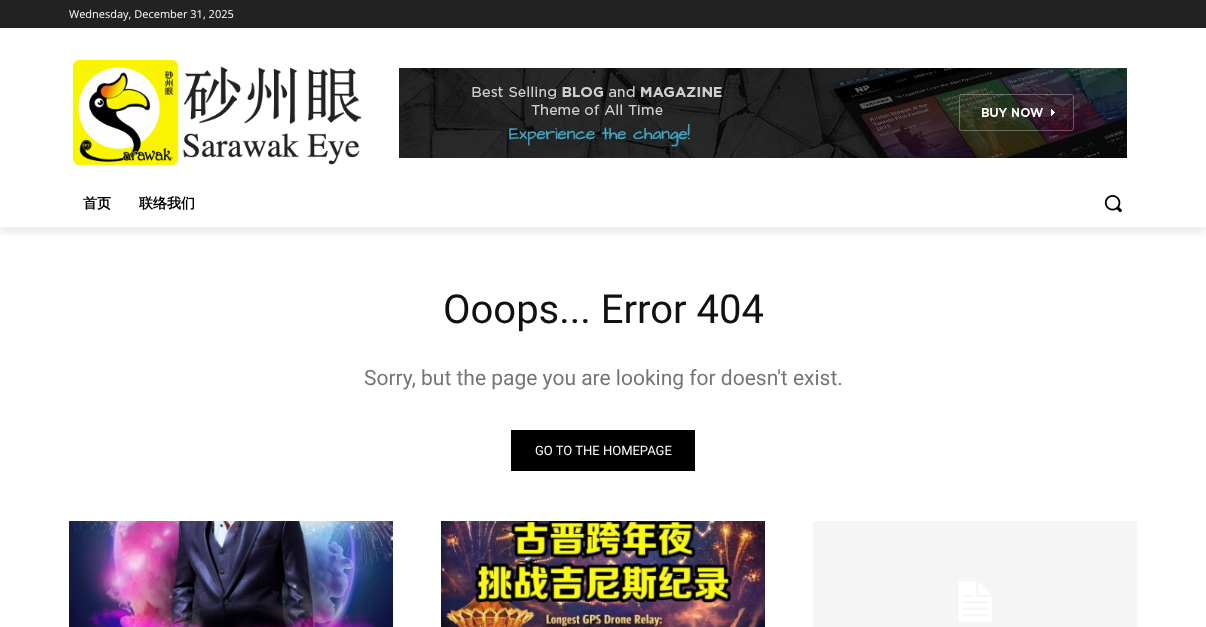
<svg xmlns="http://www.w3.org/2000/svg" width="1206" height="627" viewBox="0 0 1206 627">
  <style>
    .t1 { font: 11px Open Sans; fill: #fff; }
    .t2 { font: bold 14px WenQuanYi Zen Hei; fill: #000; }
    .t3 { font: 40px Roboto; fill: #111; }
    .t4 { font: 21px Roboto; fill: #757575; }
    .t5 { font: 13px Roboto; fill: #fff; }
  </style>
  <defs>
    <clipPath id="clip1"><rect x="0" y="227" width="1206" height="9"/></clipPath>
  </defs>
  <rect width="100%" height="100%" fill="#fff"/>
  <rect x="0" y="0" width="1206" height="28" fill="#222"/>
  <image x="72" y="59" width="290" height="107" href="images/1.png"/>
  <image x="399" y="68" width="728" height="90" href="images/2.png"/>
  <g clip-path="url(#clip1)">
    <rect x="0" y="6" width="1206" height="227" fill="#00000014" filter="blur(4px)"/>
  </g>
  <text x="69" y="18" class="t1">Wednesday, December 31, 2025</text>
  <text x="83" y="208" class="t2">首页</text>
  <text x="139" y="208" class="t2">联络我们</text>
  <image x="1104" y="195" width="18" height="18" href="images/3.png"/>
  <text x="443" y="323" class="t3">Ooops... Error 404</text>
  <text x="364" y="385" class="t4">Sorry, but the page you are looking for doesn't exist.</text>
  <rect x="511" y="430" width="184" height="41" fill="#000"/>
  <text x="535" y="455" class="t5">GO TO THE HOMEPAGE</text>
  <image x="69" y="521" width="324" height="106" href="images/4.png"/>
  <image x="441" y="521" width="324" height="106" href="images/5.png"/>
  <image x="813" y="521" width="324" height="106" href="images/6.png"/>
</svg>
